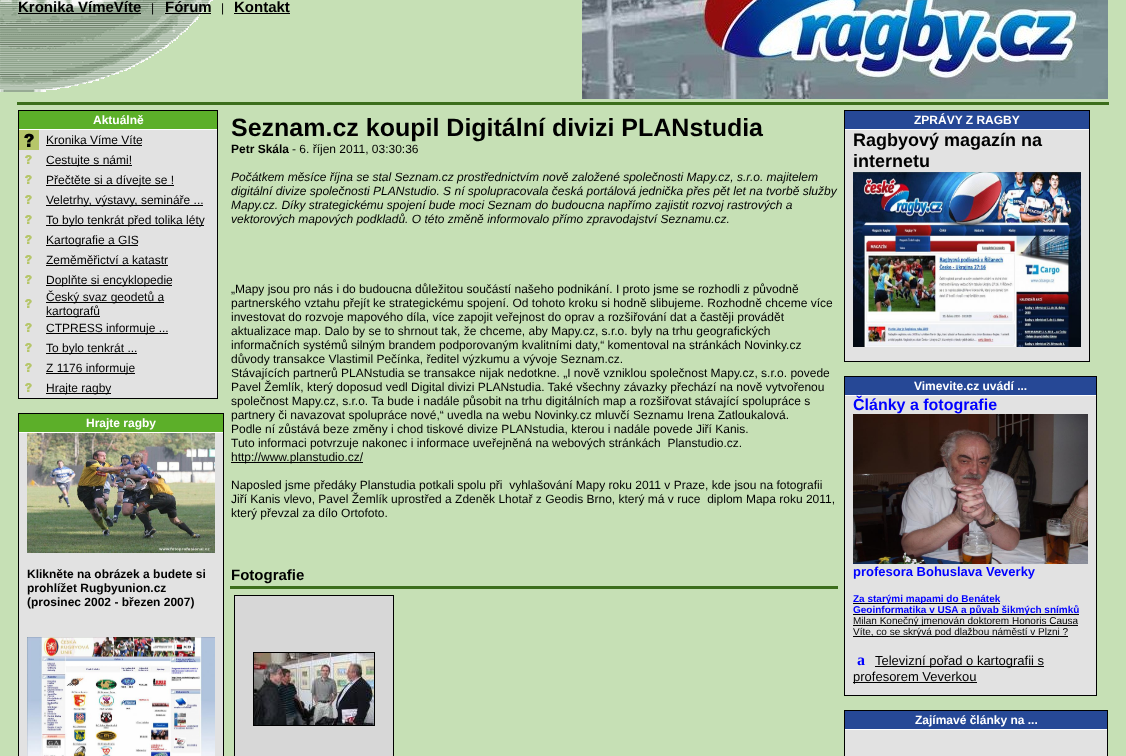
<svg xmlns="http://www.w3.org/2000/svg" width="1126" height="756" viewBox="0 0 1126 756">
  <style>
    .t1 { font: bold 15px Liberation Sans; fill: #000; }
    .t2 { font: 12px Liberation Sans; fill: #000; }
    .t3 { font: bold 12px Liberation Sans; fill: #fff; }
    .t4 { font: bold 12px Liberation Sans; fill: #000; }
    .t5 { font: bold 25px Liberation Sans; fill: #000; }
    .t6 { font: italic 12px Liberation Sans; fill: #000; }
    .t7 { font: bold 18px Liberation Sans; fill: #000; }
    .t8 { font: bold 16px Liberation Sans; fill: #00f; }
    .t9 { font: bold 13px Liberation Sans; fill: #00f; }
    .t10 { font: bold 10px Liberation Sans; fill: #00f; }
    .t11 { font: 10px Liberation Sans; fill: #000; }
    .t12 { font: bold 16px Liberation Serif; fill: #00f; }
    .t13 { font: 13px Liberation Sans; fill: #000; }
  </style>
  <rect width="100%" height="100%" fill="#c6e0b5"/>
  <image x="0" y="0" width="213" height="92" href="images/1.png"/>
  <text x="18" y="12" class="t1">Kronika VímeVíte</text>
  <rect x="18" y="13" width="123" height="1" fill="#000"/>
  <text x="151" y="12" class="t2">|</text>
  <text x="165" y="12" class="t1">Fórum</text>
  <rect x="165" y="13" width="46" height="1" fill="#000"/>
  <text x="221" y="12" class="t2">|</text>
  <text x="234" y="12" class="t1">Kontakt</text>
  <rect x="234" y="13" width="56" height="1" fill="#000"/>
  <image x="582" y="0" width="526" height="99" href="images/2.png"/>
  <rect x="17" y="102" width="1092" height="3" fill="#3c6e1c"/>
  <rect x="18" y="110" width="200" height="289" fill="#000"/>
  <rect x="19" y="111" width="198" height="18" fill="#5caf29"/>
  <rect x="19" y="129" width="198" height="1" fill="#fff"/>
  <text x="93" y="124" class="t3">Aktuálně</text>
  <rect x="19" y="130" width="198" height="268" fill="#e2e2e2"/>
  <image x="19" y="130" width="20" height="20" href="images/3.png"/>
  <text x="46" y="144" class="t2">Kronika Víme Víte</text>
  <rect x="46" y="145" width="96" height="1" fill="#000"/>
  <image x="25" y="155" width="7" height="9" href="images/4.png"/>
  <rect x="46" y="165" width="86" height="1" fill="#000"/>
  <text x="46" y="164" class="t2">Cestujte s námi!</text>
  <image x="25" y="175" width="7" height="9" href="images/4.png"/>
  <rect x="46" y="185" width="128" height="1" fill="#000"/>
  <text x="46" y="184" class="t2">Přečtěte si a dívejte se !</text>
  <image x="25" y="195" width="7" height="9" href="images/4.png"/>
  <rect x="46" y="205" width="157" height="1" fill="#000"/>
  <text x="46" y="204" class="t2">Veletrhy, výstavy, semináře ...</text>
  <image x="25" y="215" width="7" height="9" href="images/4.png"/>
  <rect x="46" y="225" width="158" height="1" fill="#000"/>
  <text x="46" y="224" class="t2">To bylo tenkrát před tolika léty</text>
  <image x="25" y="235" width="7" height="9" href="images/4.png"/>
  <rect x="46" y="245" width="92" height="1" fill="#000"/>
  <text x="46" y="244" class="t2">Kartografie a GIS</text>
  <image x="25" y="255" width="7" height="9" href="images/4.png"/>
  <text x="46" y="264" class="t2">Zeměměřictví a katastr</text>
  <rect x="46" y="265" width="122" height="1" fill="#000"/>
  <image x="25" y="275" width="7" height="9" href="images/4.png"/>
  <rect x="46" y="285" width="126" height="1" fill="#000"/>
  <text x="46" y="284" class="t2">Doplňte si encyklopedie</text>
  <image x="25" y="299" width="7" height="9" href="images/4.png"/>
  <rect x="46" y="302" width="118" height="1" fill="#000"/>
  <text x="46" y="301" class="t2">Český svaz geodetů a</text>
  <rect x="46" y="316" width="54" height="1" fill="#000"/>
  <text x="46" y="315" class="t2">kartografů</text>
  <image x="25" y="323" width="7" height="9" href="images/4.png"/>
  <rect x="46" y="333" width="122" height="1" fill="#000"/>
  <text x="46" y="332" class="t2">CTPRESS informuje ...</text>
  <image x="25" y="343" width="7" height="9" href="images/4.png"/>
  <rect x="46" y="353" width="91" height="1" fill="#000"/>
  <text x="46" y="352" class="t2">To bylo tenkrát ...</text>
  <image x="25" y="363" width="7" height="9" href="images/4.png"/>
  <rect x="46" y="373" width="89" height="1" fill="#000"/>
  <text x="46" y="372" class="t2">Z 1176 informuje</text>
  <image x="25" y="383" width="7" height="9" href="images/4.png"/>
  <rect x="46" y="393" width="65" height="1" fill="#000"/>
  <text x="46" y="392" class="t2">Hrajte ragby</text>
  <rect x="18" y="413" width="206" height="343" fill="#000"/>
  <rect x="19" y="414" width="204" height="18" fill="#5caf29"/>
  <rect x="19" y="432" width="204" height="1" fill="#fff"/>
  <text x="86" y="427" class="t3">Hrajte ragby</text>
  <rect x="19" y="433" width="204" height="323" fill="#e2e2e2"/>
  <image x="27" y="433" width="188" height="120" href="images/5.png"/>
  <text x="27" y="578" class="t4">Klikněte na obrázek a budete si</text>
  <text x="27" y="592" class="t4">prohlížet Rugbyunion.cz</text>
  <text x="27" y="606" class="t4">(prosinec 2002 - březen 2007)</text>
  <image x="27" y="637" width="188" height="119" href="images/6.png"/>
  <text x="231" y="136" class="t5">Seznam.cz koupil Digitální divizi PLANstudia</text>
  <text x="231" y="153" class="t4">Petr Skála</text>
  <text x="292" y="153" class="t2">- 6. říjen 2011, 03:30:36</text>
  <text x="231" y="181" class="t6">Počátkem měsíce října se stal Seznam.cz prostřednictvím nově založené společnosti Mapy.cz, s.r.o. majitelem</text>
  <text x="231" y="195" class="t6">digitální divize společnosti PLANstudio. S ní spolupracovala česká portálová jednička přes pět let na tvorbě služby</text>
  <text x="231" y="209" class="t6">Mapy.cz. Díky strategickému spojení bude moci Seznam do budoucna napřímo zajistit rozvoj rastrových a</text>
  <text x="231" y="223" class="t6">vektorových mapových podkladů. O této změně informovalo přímo zpravodajství Seznamu.cz.</text>
  <text x="231" y="293" class="t2">„Mapy jsou pro nás i do budoucna důležitou součástí našeho podnikání. I proto jsme se rozhodli z původně</text>
  <text x="231" y="307" class="t2">partnerského vztahu přejít ke strategickému spojení. Od tohoto kroku si hodně slibujeme. Rozhodně chceme více</text>
  <text x="231" y="321" class="t2">investovat do rozvoje mapového díla, více zapojit veřejnost do oprav a rozšiřování dat a častěji provádět</text>
  <text x="231" y="335" class="t2">aktualizace map. Dalo by se to shrnout tak, že chceme, aby Mapy.cz, s.r.o. byly na trhu geografických</text>
  <text x="231" y="349" class="t2">informačních systémů silným brandem podporovaným kvalitními daty,“ komentoval na stránkách Novinky.cz</text>
  <text x="231" y="363" class="t2">důvody transakce Vlastimil Pečínka, ředitel výzkumu a vývoje Seznam.cz.</text>
  <text x="231" y="377" class="t2">Stávajících partnerů PLANstudia se transakce nijak nedotkne. „I nově vzniklou společnost Mapy.cz, s.r.o. povede</text>
  <text x="231" y="391" class="t2">Pavel Žemlík, který doposud vedl Digital divizi PLANstudia. Také všechny závazky přechází na nově vytvořenou</text>
  <text x="231" y="405" class="t2">společnost Mapy.cz, s.r.o. Ta bude i nadále působit na trhu digitálních map a rozšiřovat stávající spolupráce s</text>
  <text x="231" y="419" class="t2">partnery či navazovat spolupráce nové,“ uvedla na webu Novinky.cz mluvčí Seznamu Irena Zatloukalová.</text>
  <text x="231" y="433" class="t2">Podle ní zůstává beze změny i chod tiskové divize PLANstudia, kterou i nadále povede Jiří Kanis.</text>
  <text x="231" y="447" class="t2" xml:space="preserve">Tuto informaci potvrzuje nakonec i informace uveřejněná na webových stránkách  Planstudio.cz.</text>
  <rect x="231" y="462" width="132" height="1" fill="#000"/>
  <text x="231" y="461" class="t2">http://www.planstudio.cz/</text>
  <text x="231" y="489" class="t2" xml:space="preserve">Naposled jsme předáky Planstudia potkali spolu při  vyhlašování Mapy roku 2011 v Praze, kde jsou na fotografii</text>
  <text x="231" y="503" class="t2" xml:space="preserve">Jiří Kanis vlevo, Pavel Žemlík uprostřed a Zdeněk Lhotař z Geodis Brno, který má v ruce  diplom Mapa roku 2011,</text>
  <text x="231" y="517" class="t2">který převzal za dílo Ortofoto.</text>
  <text x="231" y="580" class="t1">Fotografie</text>
  <rect x="230" y="586" width="608" height="3" fill="#3c6e1c"/>
  <rect x="234.5" y="595.5" width="159" height="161" fill="#d7d7d7" stroke="#000"/>
  <rect x="253.5" y="652.5" width="121" height="73" fill="none" stroke="#000"/>
  <image x="254" y="653" width="120" height="72" href="images/7.png"/>
  <rect x="844" y="110" width="246" height="252" fill="#000"/>
  <rect x="845" y="111" width="244" height="18" fill="#264896"/>
  <rect x="845" y="129" width="244" height="1" fill="#fff"/>
  <text x="914" y="124" class="t3">ZPRÁVY Z RAGBY</text>
  <rect x="845" y="130" width="244" height="231" fill="#e2e2e2"/>
  <text x="853" y="146" class="t7">Ragbyový magazín na</text>
  <text x="853" y="167" class="t7">internetu</text>
  <image x="853" y="172" width="228" height="175" href="images/8.png"/>
  <rect x="844" y="376" width="253" height="320" fill="#000"/>
  <rect x="845" y="377" width="251" height="18" fill="#264896"/>
  <rect x="845" y="395" width="251" height="1" fill="#fff"/>
  <text x="914" y="390" class="t3">Vimevite.cz uvádí ...</text>
  <rect x="845" y="396" width="251" height="299" fill="#e2e2e2"/>
  <text x="853" y="410" class="t8">Články a fotografie</text>
  <image x="853" y="414" width="235" height="150" href="images/9.png"/>
  <text x="853" y="576" class="t9">profesora Bohuslava Veverky</text>
  <rect x="853" y="603" width="147" height="1" fill="#000"/>
  <text x="853" y="602" class="t10">Za starými mapami do Benátek</text>
  <rect x="853" y="614" width="226" height="1" fill="#000"/>
  <text x="853" y="613" class="t10">Geoinformatika v USA a půvab šikmých snímků</text>
  <rect x="853" y="625" width="225" height="1" fill="#000"/>
  <text x="853" y="624" class="t11">Milan Konečný jmenován doktorem Honoris Causa</text>
  <rect x="853" y="636" width="215" height="1" fill="#000"/>
  <text x="853" y="635" class="t11">Víte, co se skrývá pod dlažbou náměstí v Plzni ?</text>
  <text x="857" y="665" class="t12">a</text>
  <rect x="875" y="666" width="169" height="1" fill="#000"/>
  <text x="875" y="665" class="t13">Televizní pořad o kartografii s</text>
  <rect x="853" y="682" width="124" height="1" fill="#000"/>
  <text x="853" y="681" class="t13">profesorem Veverkou</text>
  <rect x="844" y="710" width="264" height="46" fill="#000"/>
  <rect x="845" y="711" width="262" height="18" fill="#264896"/>
  <rect x="845" y="729" width="262" height="1" fill="#fff"/>
  <text x="915" y="724" class="t3">Zajímavé články na ...</text>
  <rect x="845" y="730" width="262" height="26" fill="#e2e2e2"/>
</svg>
